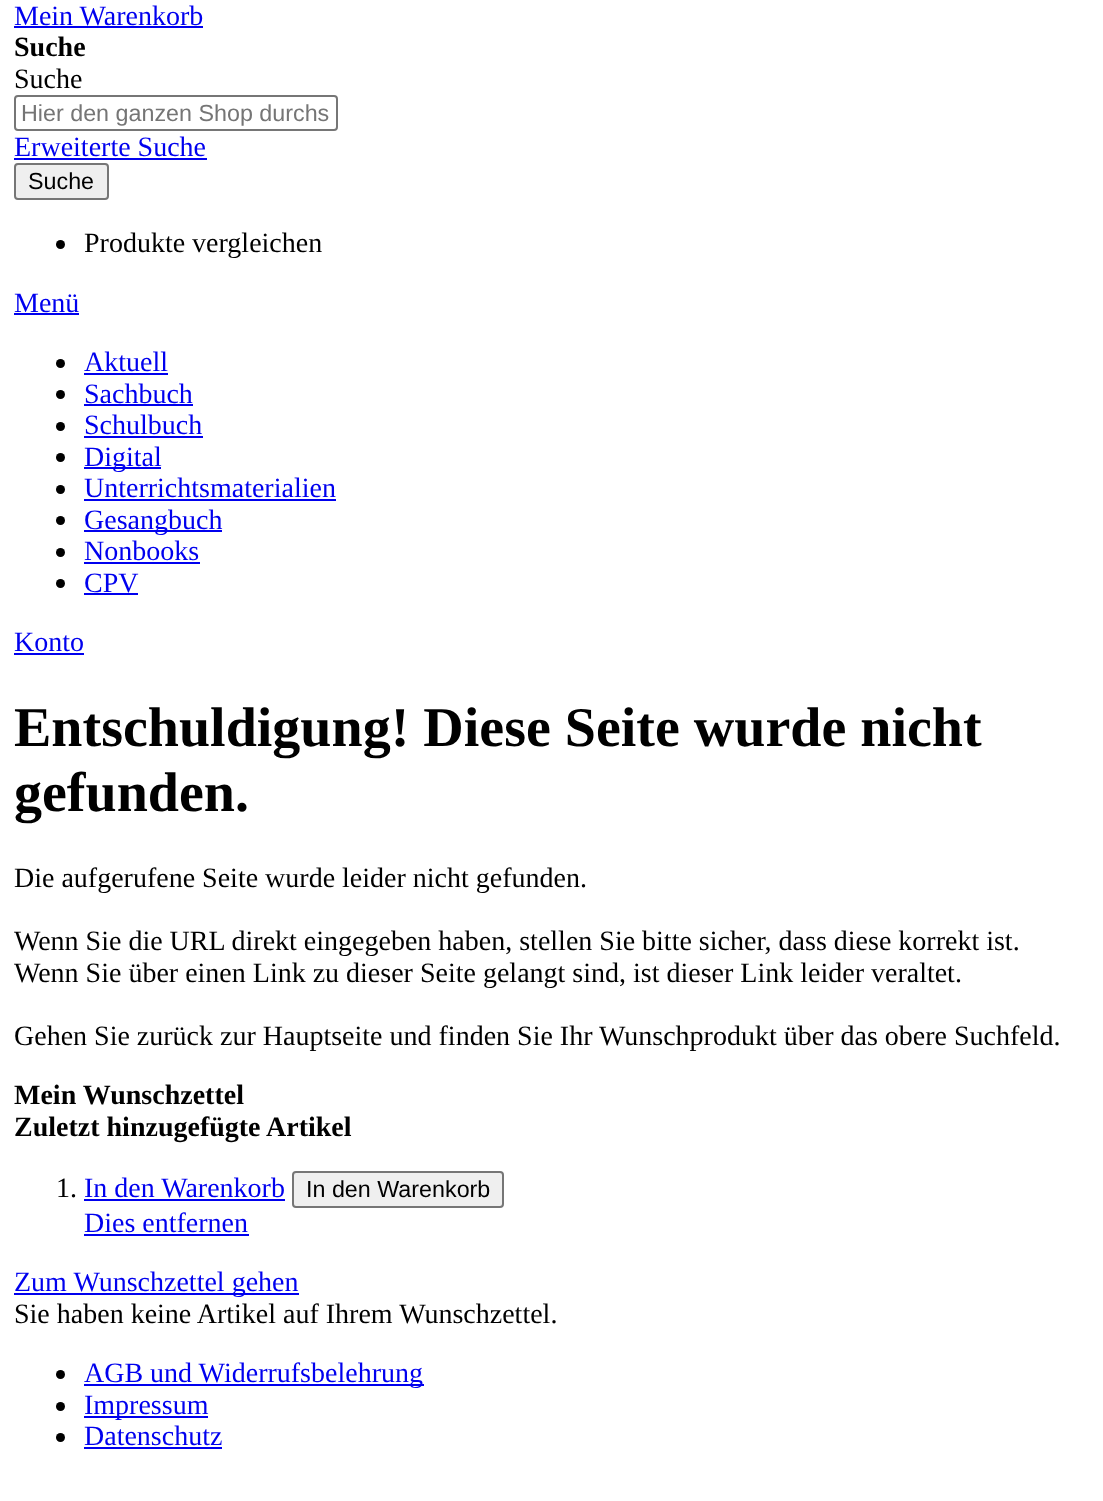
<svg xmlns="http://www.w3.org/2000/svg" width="1103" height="1501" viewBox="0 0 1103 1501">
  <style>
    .t1 { font: 28px Liberation Serif; fill: #00e; }
    .t2 { font: bold 28px Liberation Serif; fill: #000; }
    .t3 { font: 28px Liberation Serif; fill: #000; }
    .t4 { font: 23.3px Liberation Sans; fill: #757575; }
    .t5 { font: 23.3px Liberation Sans; fill: #000; }
    .t6 { font: bold 56px Liberation Serif; fill: #000; }
  </style>
  <rect width="100%" height="100%" fill="#fff"/>
  <text x="14" y="25" class="t1">Mein Warenkorb</text>
  <rect x="14" y="26" width="189" height="2" fill="#00e"/>
  <text x="14" y="56" class="t2">Suche</text>
  <text x="14" y="88" class="t3">Suche</text>
  <rect x="15" y="96" width="322" height="34" rx="3" fill="none" stroke="#767676" stroke-width="2"/>
  <text x="21" y="121" class="t4">Hier den ganzen Shop durchs</text>
  <text x="14" y="156" class="t1">Erweiterte Suche</text>
  <rect x="14" y="158" width="193" height="2" fill="#00e"/>
  <rect x="15" y="164" width="93" height="35" rx="3" fill="#efefef" stroke="#767676" stroke-width="2"/>
  <text x="28" y="189" class="t5">Suche</text>
  <circle cx="60.5" cy="244.5" r="4.5" fill="#000"/>
  <text x="84" y="252" class="t3">Produkte vergleichen</text>
  <text x="14" y="312" class="t1">Menü</text>
  <rect x="14" y="313" width="65" height="2" fill="#00e"/>
  <circle cx="60.5" cy="363.5" r="4.5" fill="#000"/>
  <text x="84" y="371" class="t1">Aktuell</text>
  <rect x="84" y="373" width="84" height="2" fill="#00e"/>
  <circle cx="60.5" cy="394.5" r="4.5" fill="#000"/>
  <text x="84" y="403" class="t1">Sachbuch</text>
  <rect x="84" y="404" width="109" height="2" fill="#00e"/>
  <circle cx="60.5" cy="426.5" r="4.5" fill="#000"/>
  <text x="84" y="434" class="t1">Schulbuch</text>
  <rect x="84" y="436" width="119" height="2" fill="#00e"/>
  <circle cx="60.5" cy="457.5" r="4.5" fill="#000"/>
  <rect x="84" y="467" width="77" height="2" fill="#00e"/>
  <text x="84" y="466" class="t1">Digital</text>
  <circle cx="60.5" cy="489.5" r="4.5" fill="#000"/>
  <text x="84" y="497" class="t1">Unterrichtsmaterialien</text>
  <rect x="84" y="499" width="252" height="2" fill="#00e"/>
  <circle cx="60.5" cy="520.5" r="4.5" fill="#000"/>
  <rect x="84" y="530" width="138" height="2" fill="#00e"/>
  <text x="84" y="529" class="t1">Gesangbuch</text>
  <circle cx="60.5" cy="552.5" r="4.5" fill="#000"/>
  <text x="84" y="560" class="t1">Nonbooks</text>
  <rect x="84" y="562" width="116" height="2" fill="#00e"/>
  <circle cx="60.5" cy="583.5" r="4.5" fill="#000"/>
  <text x="84" y="592" class="t1">CPV</text>
  <rect x="84" y="593" width="54" height="2" fill="#00e"/>
  <text x="14" y="651" class="t1">Konto</text>
  <rect x="14" y="653" width="70" height="2" fill="#00e"/>
  <text x="14" y="746" class="t6">Entschuldigung! Diese Seite wurde nicht</text>
  <text x="14" y="811" class="t6">gefunden.</text>
  <text x="14" y="887" class="t3">Die aufgerufene Seite wurde leider nicht gefunden.</text>
  <text x="14" y="950" class="t3">Wenn Sie die URL direkt eingegeben haben, stellen Sie bitte sicher, dass diese korrekt ist.</text>
  <text x="14" y="982" class="t3">Wenn Sie über einen Link zu dieser Seite gelangt sind, ist dieser Link leider veraltet.</text>
  <text x="14" y="1045" class="t3">Gehen Sie zurück zur Hauptseite und finden Sie Ihr Wunschprodukt über das obere Suchfeld.</text>
  <text x="14" y="1104" class="t2">Mein Wunschzettel</text>
  <text x="14" y="1136" class="t2">Zuletzt hinzugefügte Artikel</text>
  <text x="56" y="1197" class="t3">1.</text>
  <text x="84" y="1197" class="t1">In den Warenkorb</text>
  <rect x="84" y="1199" width="201" height="2" fill="#00e"/>
  <rect x="293" y="1172" width="210" height="35" rx="3" fill="#efefef" stroke="#767676" stroke-width="2"/>
  <text x="306" y="1197" class="t5">In den Warenkorb</text>
  <text x="84" y="1232" class="t1">Dies entfernen</text>
  <rect x="84" y="1234" width="165" height="2" fill="#00e"/>
  <rect x="14" y="1293" width="285" height="2" fill="#00e"/>
  <text x="14" y="1291" class="t1">Zum Wunschzettel gehen</text>
  <text x="14" y="1323" class="t3">Sie haben keine Artikel auf Ihrem Wunschzettel.</text>
  <circle cx="60.5" cy="1374.5" r="4.5" fill="#000"/>
  <rect x="84" y="1384" width="340" height="2" fill="#00e"/>
  <text x="84" y="1382" class="t1">AGB und Widerrufsbelehrung</text>
  <circle cx="60.5" cy="1406.5" r="4.5" fill="#000"/>
  <rect x="84" y="1416" width="124" height="2" fill="#00e"/>
  <text x="84" y="1414" class="t1">Impressum</text>
  <circle cx="60.5" cy="1437.5" r="4.5" fill="#000"/>
  <text x="84" y="1445" class="t1">Datenschutz</text>
  <rect x="84" y="1447" width="138" height="2" fill="#00e"/>
</svg>
